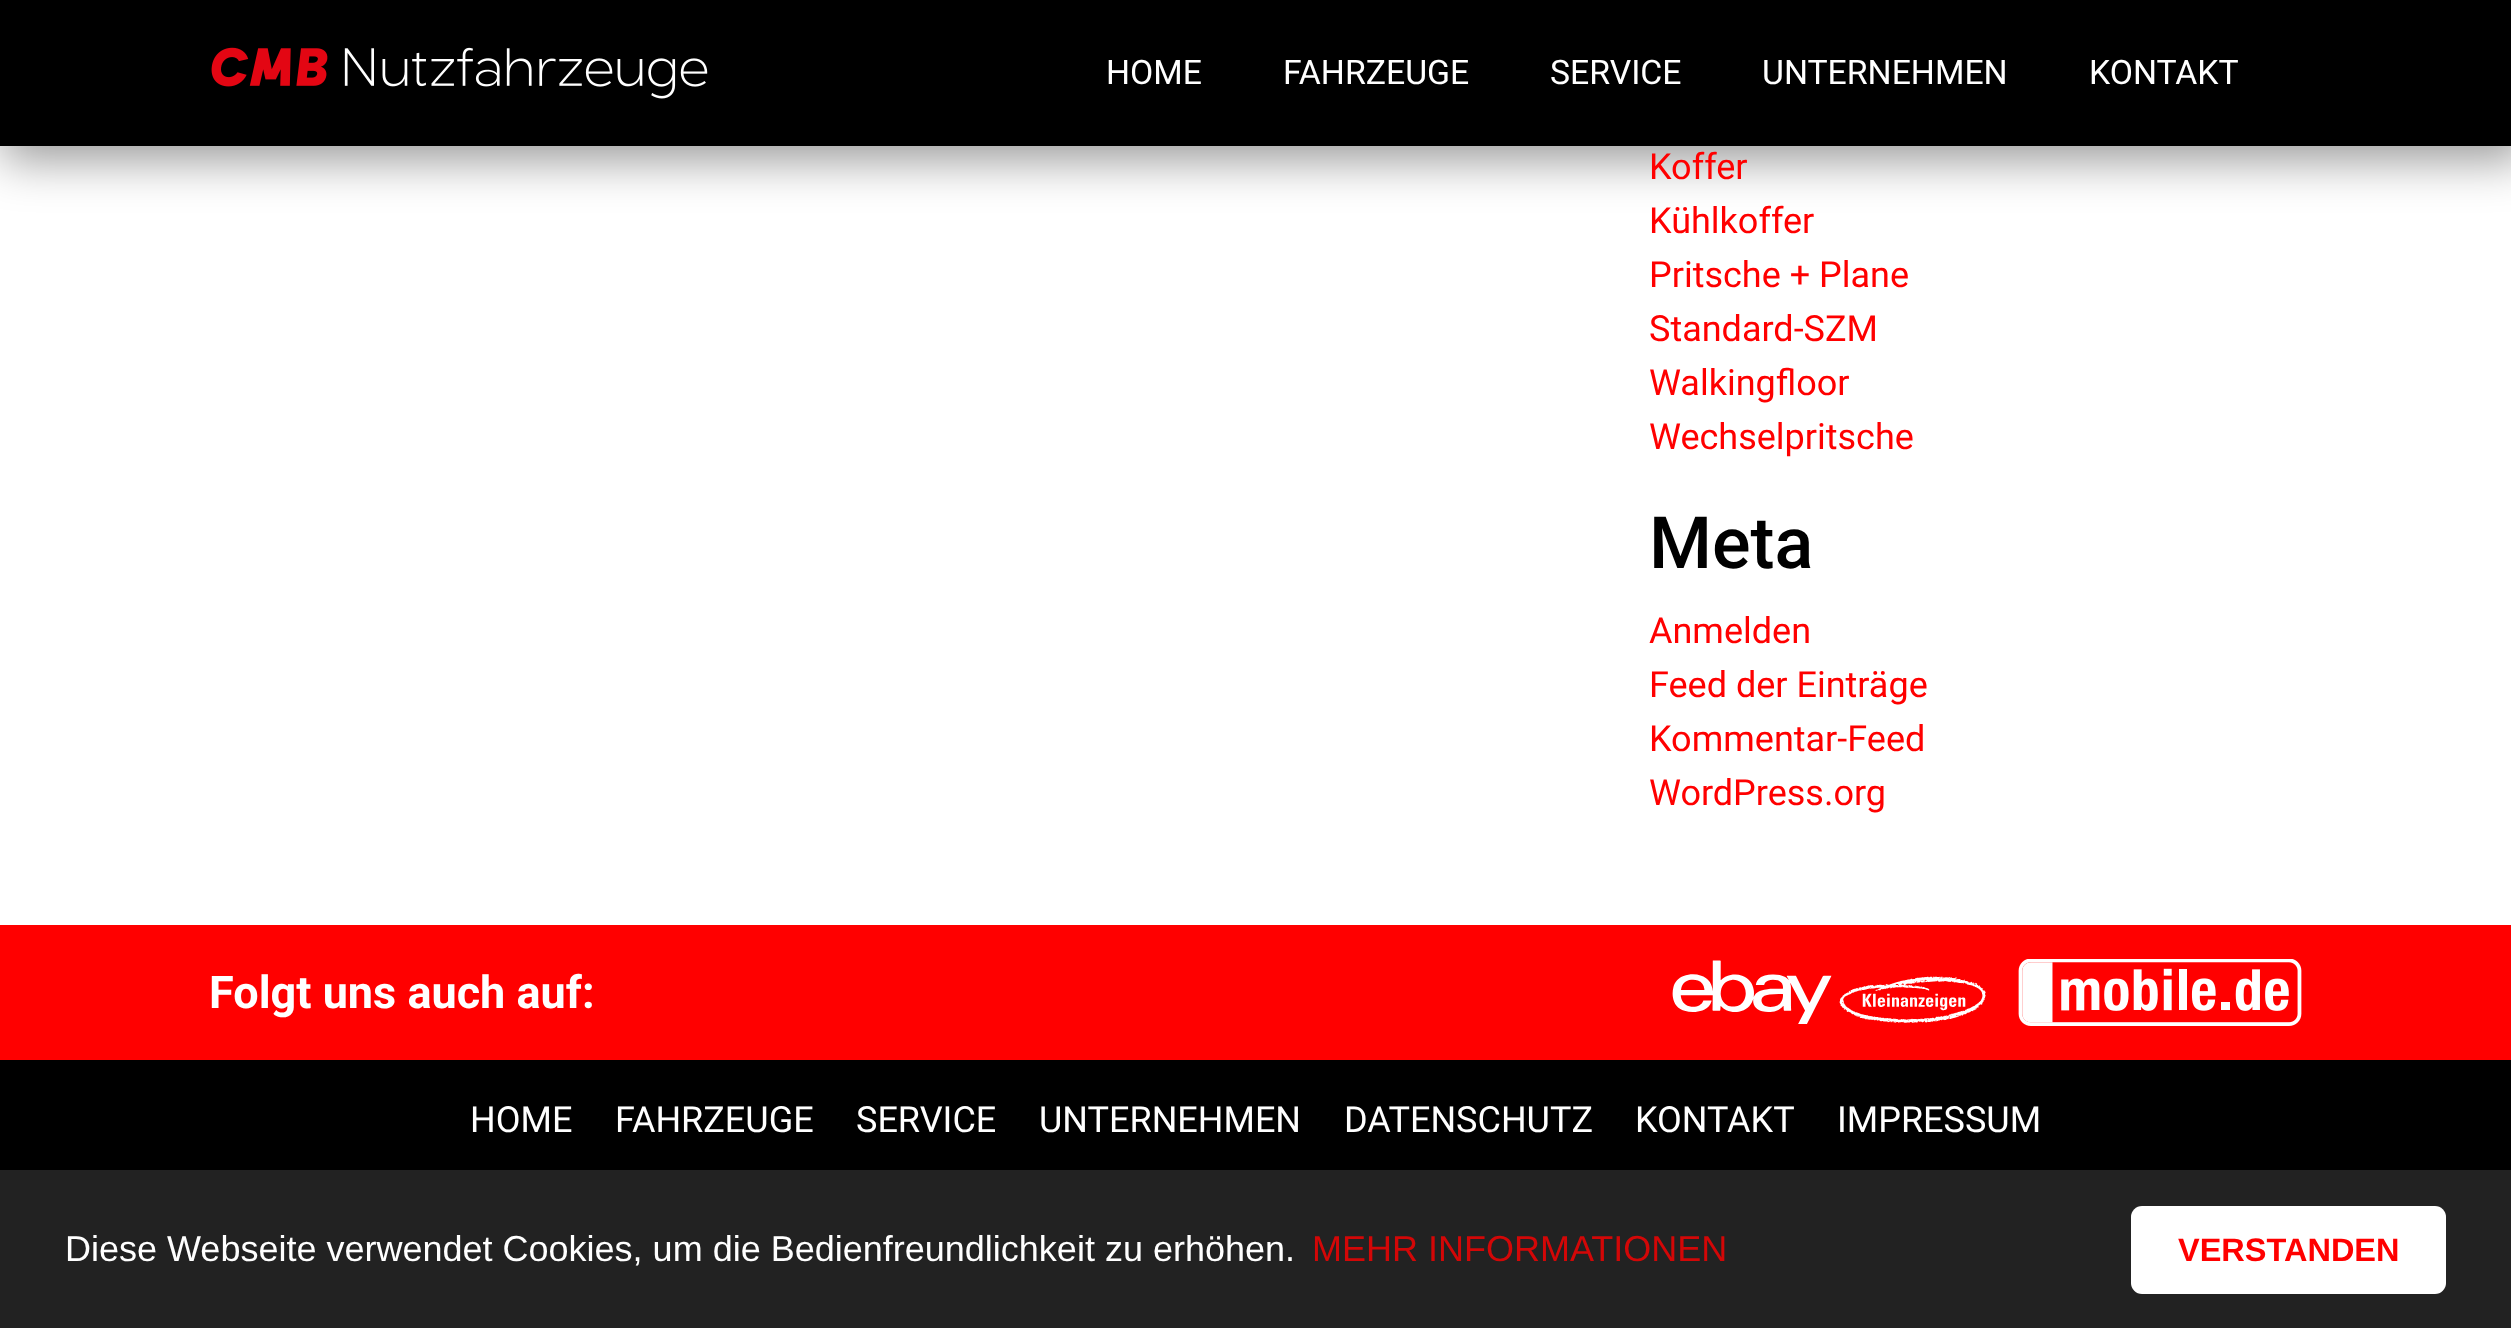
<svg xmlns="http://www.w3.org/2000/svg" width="2511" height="1328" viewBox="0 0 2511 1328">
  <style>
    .t1 { font: 33.75px Roboto; fill: #fff; }
    .t2 { font: 36px Roboto; fill: #f00; }
    .t3 { font: 500 72px Roboto; fill: #000; }
    .t4 { font: bold 45px Roboto; fill: #fff; }
    .t5 { font: 36px Roboto; fill: #fff; }
    .t6 { font: 36px Liberation Sans; fill: #fff; }
    .t7 { font: 36px Liberation Sans; fill: #d30707; }
    .t8 { font: bold 32.5px Liberation Sans; fill: #f00; }
  </style>
  <rect width="100%" height="100%" fill="#fff"/>
  <rect x="2" y="0" width="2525" height="160" fill="#00000066" filter="blur(23.5px)"/>
  <rect x="0" y="0" width="2511" height="146" fill="#000"/>
  <image x="211" y="47" width="497" height="52" href="images/1.png"/>
  <text x="1106" y="84" class="t1">HOME</text>
  <text x="1283" y="84" class="t1">FAHRZEUGE</text>
  <text x="1550" y="84" class="t1">SERVICE</text>
  <text x="1762" y="84" class="t1">UNTERNEHMEN</text>
  <text x="2089" y="84" class="t1">KONTAKT</text>
  <text x="1649" y="179" class="t2">Koffer</text>
  <text x="1649" y="233" class="t2">Kühlkoffer</text>
  <text x="1649" y="287" class="t2">Pritsche + Plane</text>
  <text x="1649" y="341" class="t2">Standard-SZM</text>
  <text x="1649" y="395" class="t2">Walkingfloor</text>
  <text x="1649" y="449" class="t2">Wechselpritsche</text>
  <text x="1649" y="568" class="t3">Meta</text>
  <text x="1649" y="643" class="t2">Anmelden</text>
  <text x="1649" y="697" class="t2">Feed der Einträge</text>
  <text x="1649" y="751" class="t2">Kommentar-Feed</text>
  <text x="1649" y="805" class="t2">WordPress.org</text>
  <rect x="0" y="1060" width="2511" height="110" fill="#000"/>
  <rect x="0" y="925" width="2511" height="135" fill="#f00"/>
  <text x="209" y="1008" class="t4">Folgt uns auch auf:</text>
  <image x="1672" y="960" width="314" height="64" href="images/2.png"/>
  <image x="2018" y="959" width="284" height="67" href="images/3.png"/>
  <text x="470" y="1132" class="t5">HOME</text>
  <text x="615" y="1132" class="t5">FAHRZEUGE</text>
  <text x="856" y="1132" class="t5">SERVICE</text>
  <text x="1039" y="1132" class="t5">UNTERNEHMEN</text>
  <text x="1344" y="1132" class="t5">DATENSCHUTZ</text>
  <text x="1635" y="1132" class="t5">KONTAKT</text>
  <text x="1837" y="1132" class="t5">IMPRESSUM</text>
  <rect x="0" y="1170" width="2511" height="158" fill="#222"/>
  <text x="65" y="1261" class="t6">Diese Webseite verwendet Cookies, um die Bedienfreundlichkeit zu erhöhen.</text>
  <text x="1312" y="1261" class="t7">MEHR INFORMATIONEN</text>
  <rect x="2131" y="1206" width="315" height="88" rx="11" fill="#fff"/>
  <text x="2178" y="1261" class="t8">VERSTANDEN</text>
</svg>
